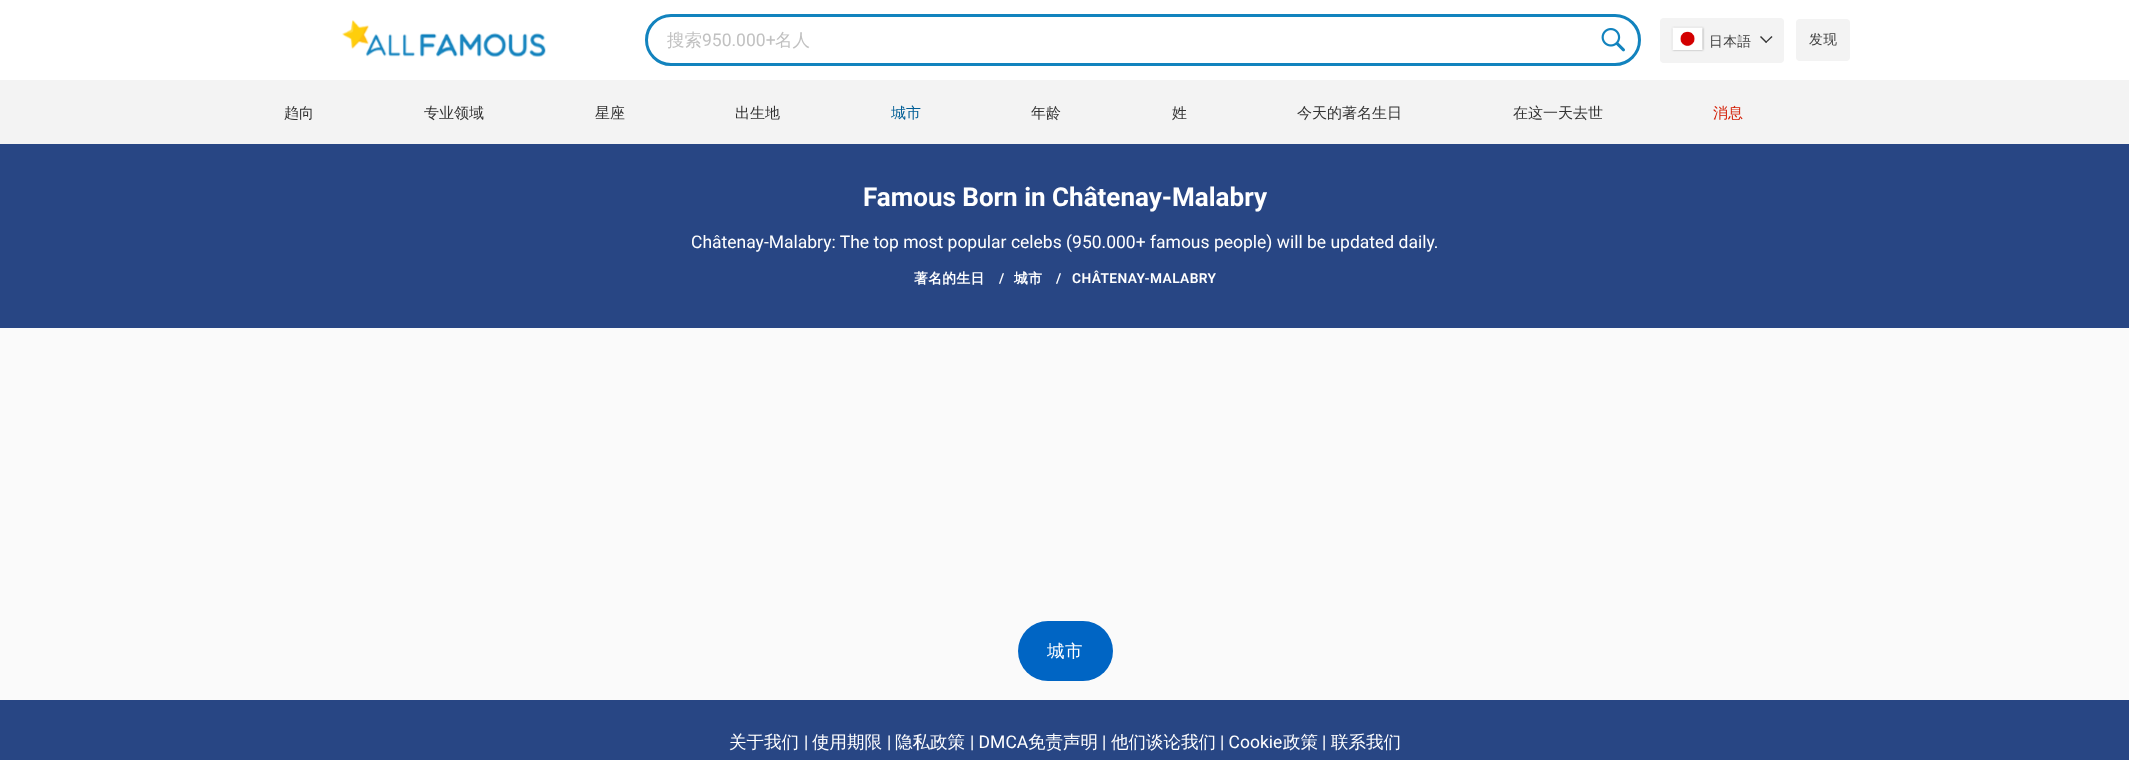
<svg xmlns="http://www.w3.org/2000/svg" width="2129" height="760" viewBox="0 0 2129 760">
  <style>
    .t1 { font: 500 17.5px WenQuanYi Zen Hei; fill: #c1c1c1; }
    .t2 { font: 17.5px Roboto; fill: #c1c1c1; }
    .t3 { font: 500 13.75px WenQuanYi Zen Hei; letter-spacing: 0.4px; fill: #3e3e3e; }
    .t4 { font: 500 15px WenQuanYi Zen Hei; fill: #333; }
    .t5 { font: 500 15px WenQuanYi Zen Hei; fill: #005e96; }
    .t6 { font: 500 15px WenQuanYi Zen Hei; fill: #d31a00; }
    .t7 { font: bold 26px Roboto; fill: #fff; }
    .t8 { font: 17.5px Roboto; fill: #fff; }
    .t9 { font: bold 13.75px WenQuanYi Zen Hei; letter-spacing: 0.4px; fill: #fff; }
    .t10 { font: 600 13.75px Roboto; letter-spacing: 0.4px; fill: #fff; }
    .t11 { font: 500 17.5px WenQuanYi Zen Hei; letter-spacing: 0.4px; fill: #fff; }
    .t12 { font: 500 17.5px WenQuanYi Zen Hei; fill: #fff; }
  </style>
  <rect width="100%" height="100%" fill="#fafafa"/>
  <rect x="0" y="0" width="2129" height="80" fill="#fff"/>
  <rect x="0" y="80" width="2129" height="64" fill="#f3f3f3"/>
  <image x="342" y="20" width="204" height="37" href="images/1.png"/>
  <rect x="646.5" y="15.5" width="993" height="49" rx="24.5" fill="none" stroke="#1283be" stroke-width="3"/>
  <text x="667" y="46" class="t1">搜索</text>
  <text x="702" y="46" class="t2">950.000+</text>
  <text x="775" y="46" class="t1">名人</text>
  <image x="1601" y="28" width="24" height="24" href="images/2.png"/>
  <rect x="1660" y="18" width="124" height="45" rx="4" fill="#f3f3f3"/>
  <rect x="1673" y="28" width="30" height="22" fill="#a3a3a3" filter="blur(1px)"/>
  <image x="1672" y="27" width="31" height="23" href="images/3.png"/>
  <text x="1709" y="46" class="t3">日本語</text>
  <path d="M1765.5 42L1771.5 36L1772.5 37L1766 43Z" fill="#333"/>
  <path d="M1760 37L1761 36L1767 42L1766 43Z" fill="#333"/>
  <rect x="1796" y="19" width="54" height="42" rx="4" fill="#f3f3f3"/>
  <text x="1809" y="44" class="t3">发现</text>
  <text x="284" y="118" class="t4">趋向</text>
  <text x="424" y="118" class="t4">专业领域</text>
  <text x="595" y="118" class="t4">星座</text>
  <text x="735" y="118" class="t4">出生地</text>
  <text x="891" y="118" class="t5">城市</text>
  <text x="1031" y="118" class="t4">年龄</text>
  <text x="1172" y="118" class="t4">姓</text>
  <text x="1297" y="118" class="t4">今天的著名生日</text>
  <text x="1513" y="118" class="t4">在这一天去世</text>
  <text x="1713" y="118" class="t6">消息</text>
  <rect x="0" y="144" width="2129" height="184" fill="#284684"/>
  <text x="863" y="206" class="t7">Famous Born in Châtenay-Malabry</text>
  <text x="691" y="248" class="t8">Châtenay-Malabry: The top most popular celebs (950.000+ famous people) will be updated daily.</text>
  <text x="914" y="283" class="t9">著名的生日</text>
  <text x="999" y="283" class="t10">/</text>
  <text x="1014" y="283" class="t9">城市</text>
  <text x="1056" y="283" class="t10">/</text>
  <text x="1072" y="283" class="t10">CHÂTENAY-MALABRY</text>
  <rect x="1018" y="621" width="95" height="60" rx="30" fill="#0065c4"/>
  <text x="1047" y="657" class="t11">城市</text>
  <rect x="0" y="700" width="2129" height="60" fill="#284684"/>
  <text x="729" y="748" class="t12">关于我们</text>
  <text x="804" y="748" class="t8">|</text>
  <text x="812" y="748" class="t12">使用期限</text>
  <text x="887" y="748" class="t8">|</text>
  <text x="895" y="748" class="t12">隐私政策</text>
  <text x="970" y="748" class="t8">| DMCA</text>
  <text x="1028" y="748" class="t12">免责声明</text>
  <text x="1102" y="748" class="t8">|</text>
  <text x="1111" y="748" class="t12">他们谈论我们</text>
  <text x="1220" y="748" class="t8">| Cookie</text>
  <text x="1283" y="748" class="t12">政策</text>
  <text x="1322" y="748" class="t8">|</text>
  <text x="1331" y="748" class="t12">联系我们</text>
</svg>
